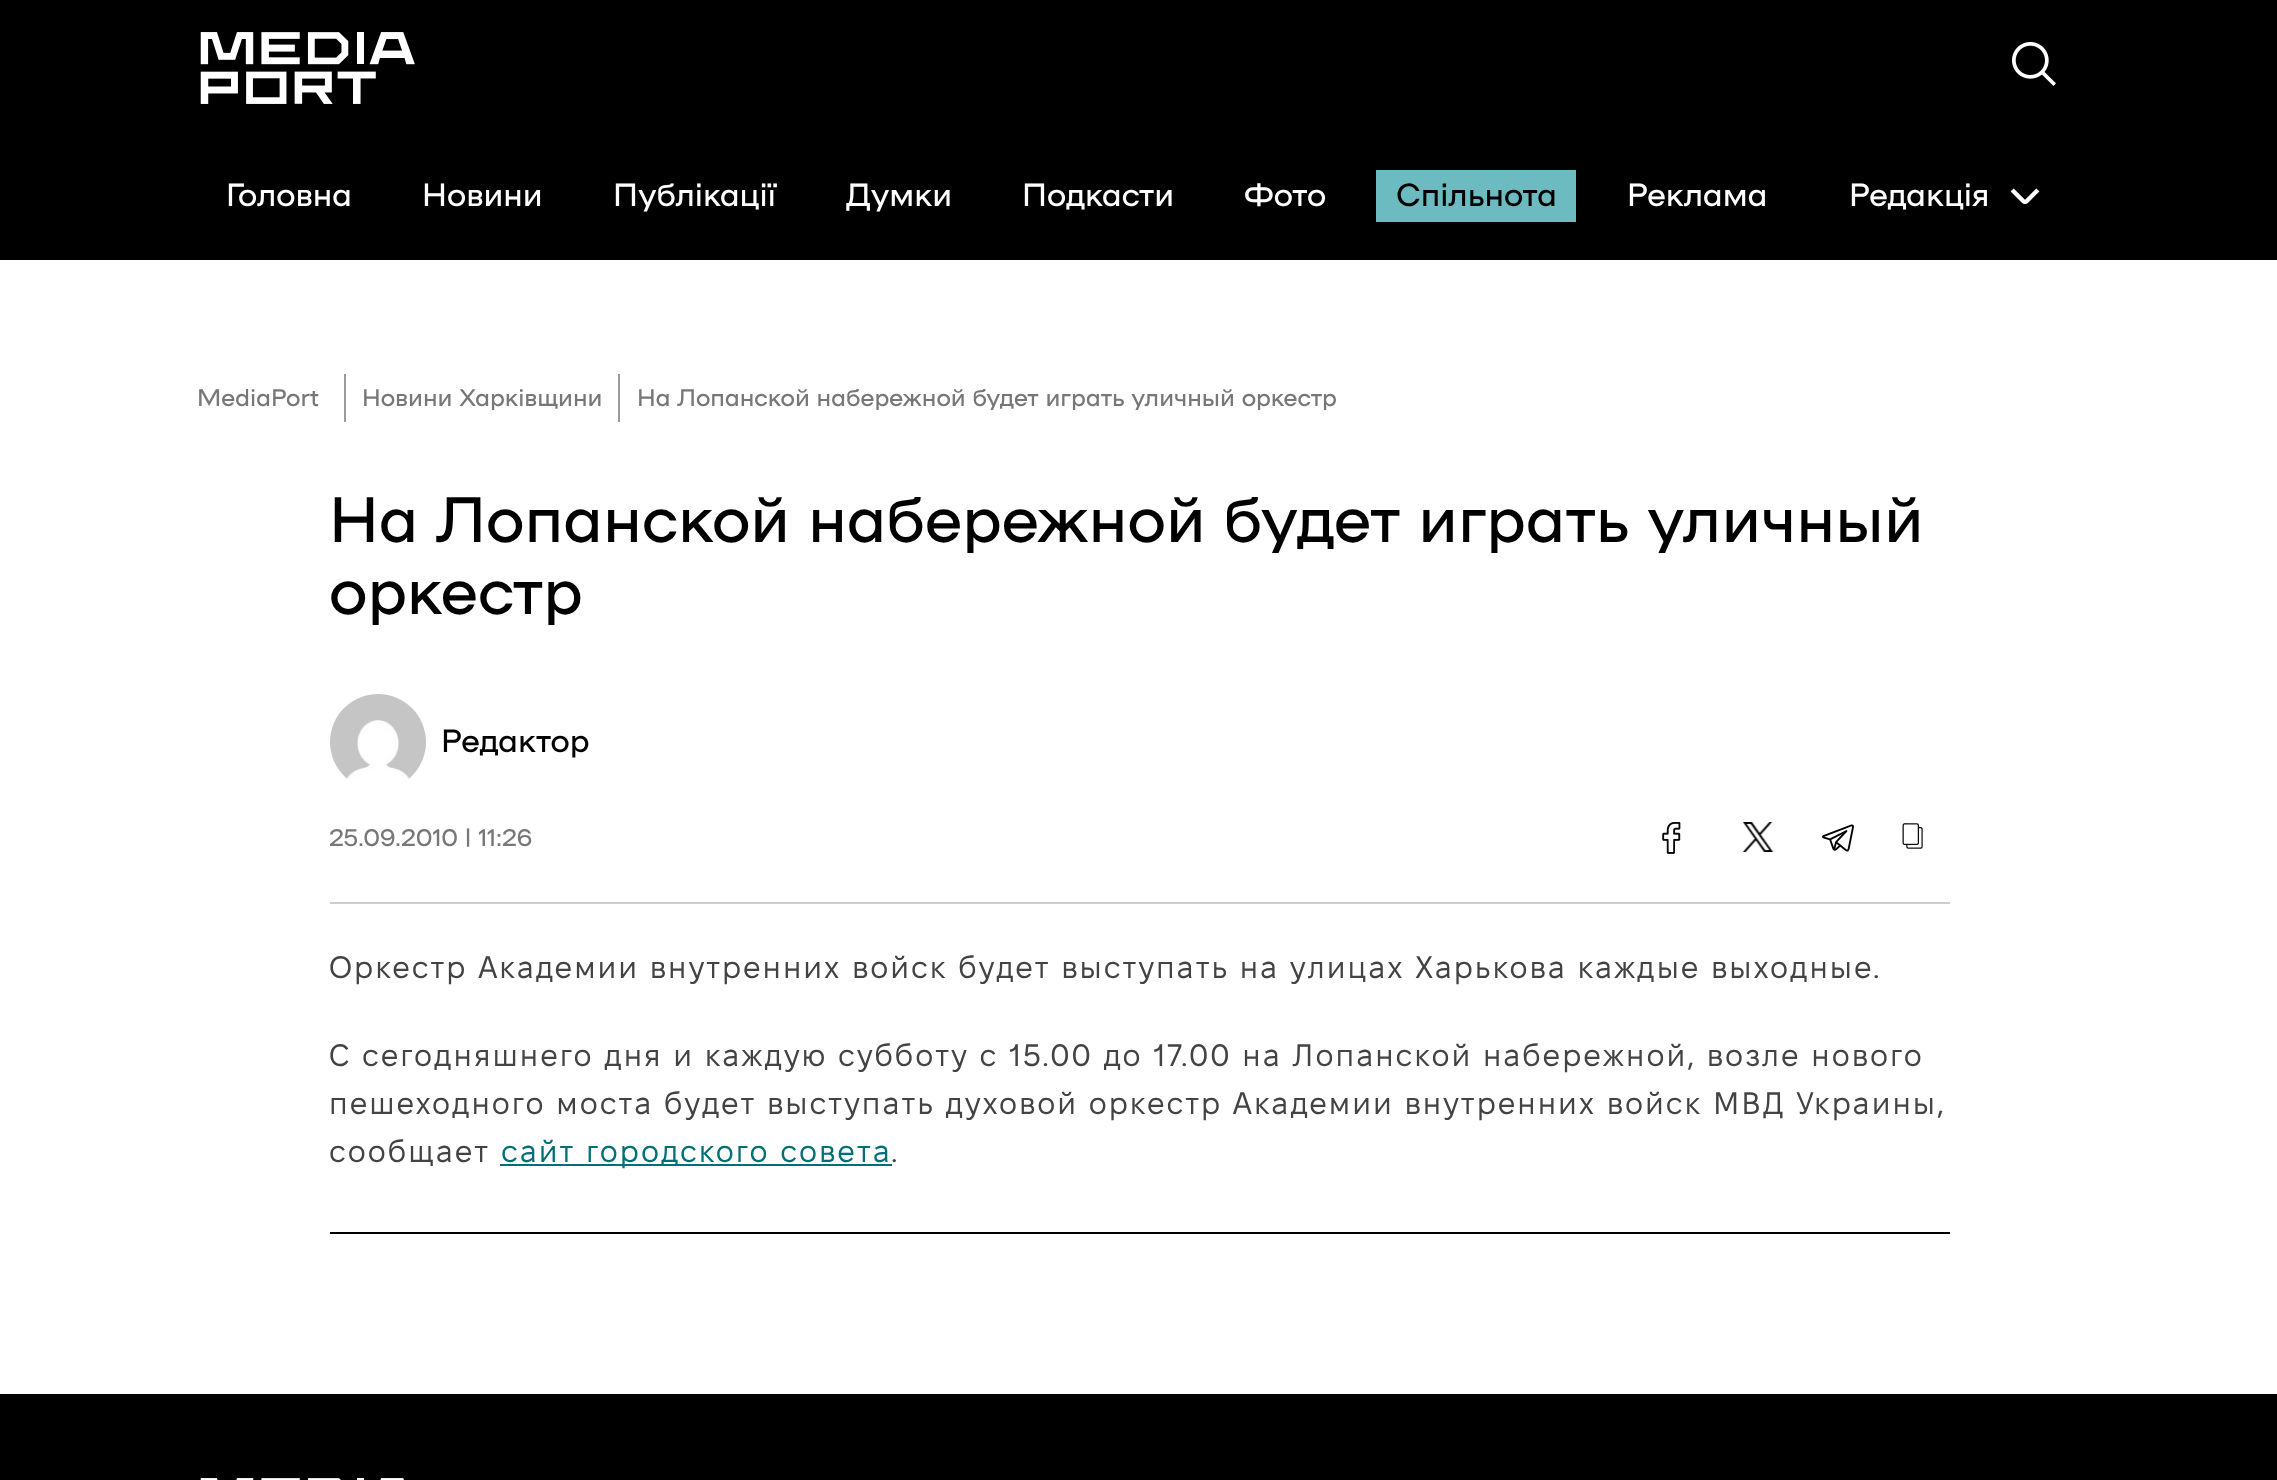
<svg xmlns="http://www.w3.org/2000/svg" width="2277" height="1480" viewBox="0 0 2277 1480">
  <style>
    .t1 { font: 900 32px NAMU; fill: #fff; }
    .t2 { font: 900 32px NAMU; fill: #000; }
    .t3 { font: 900 24px NAMU; fill: #777; }
    .t4 { font: 900 64px NAMU; fill: #000; }
    .t5 { font: 31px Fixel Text; letter-spacing: 2px; fill: #434343; }
    .t6 { font: 31px Fixel Text; letter-spacing: 2px; fill: #006f77; }
  </style>
  <rect width="100%" height="100%" fill="#fff"/>
  <rect x="0" y="0" width="2277" height="260" fill="#000"/>
  <image x="200" y="32" width="215" height="72" href="images/1.png"/>
  <image x="2012" y="42" width="44" height="44" href="images/2.png"/>
  <text x="226" y="206" class="t1">Головна</text>
  <text x="422" y="206" class="t1">Новини</text>
  <text x="613" y="206" class="t1">Публікації</text>
  <text x="846" y="206" class="t1">Думки</text>
  <text x="1022" y="206" class="t1">Подкасти</text>
  <text x="1244" y="206" class="t1">Фото</text>
  <rect x="1376" y="170" width="200" height="52" fill="#6bbbc1"/>
  <text x="1396" y="206" class="t2">Спільнота</text>
  <text x="1627" y="206" class="t1">Реклама</text>
  <text x="1849" y="206" class="t1">Редакція</text>
  <image x="2010" y="188" width="30" height="16" href="images/3.png"/>
  <text x="197" y="406" class="t3">MediaPort</text>
  <rect x="344" y="374" width="2" height="48" fill="#9b9b9b"/>
  <text x="362" y="406" class="t3">Новини Харківщини</text>
  <rect x="618" y="374" width="2" height="48" fill="#9b9b9b"/>
  <text x="637" y="406" class="t3">На Лопанской набережной будет играть уличный оркестр</text>
  <text x="329" y="542" class="t4">На Лопанской набережной будет играть уличный</text>
  <text x="329" y="614" class="t4">оркестр</text>
  <image x="330" y="694" width="96" height="85" href="images/4.png"/>
  <text x="441" y="752" class="t2">Редактор</text>
  <rect x="330" y="902" width="1620" height="2" fill="#ceccd6"/>
  <text x="329" y="846" class="t3">25.09.2010 | 11:26</text>
  <image x="1662" y="822" width="19" height="32" href="images/5.png"/>
  <image x="1742" y="822" width="32" height="30" href="images/6.png"/>
  <image x="1822" y="824" width="32" height="28" href="images/7.png"/>
  <image x="1902" y="823" width="21" height="26" href="images/8.png"/>
  <rect x="330" y="1232" width="1620" height="2" fill="#000"/>
  <text x="329" y="978" class="t5">Оркестр Академии внутренних войск будет выступать на улицах Харькова каждые выходные.</text>
  <text x="329" y="1066" class="t5">С сегодняшнего дня и каждую субботу с 15.00 до 17.00 на Лопанской набережной, возле нового</text>
  <text x="329" y="1114" class="t5">пешеходного моста будет выступать духовой оркестр Академии внутренних войск МВД Украины,</text>
  <text x="329" y="1162" class="t5">сообщает</text>
  <rect x="500" y="1164" width="392" height="2" fill="#006f77"/>
  <text x="501" y="1162" class="t6">сайт городского совета</text>
  <text x="891" y="1162" class="t5">.</text>
  <rect x="0" y="1394" width="2277" height="86" fill="#000"/>
  <image x="200" y="1478" width="204" height="2" href="images/9.png"/>
</svg>
